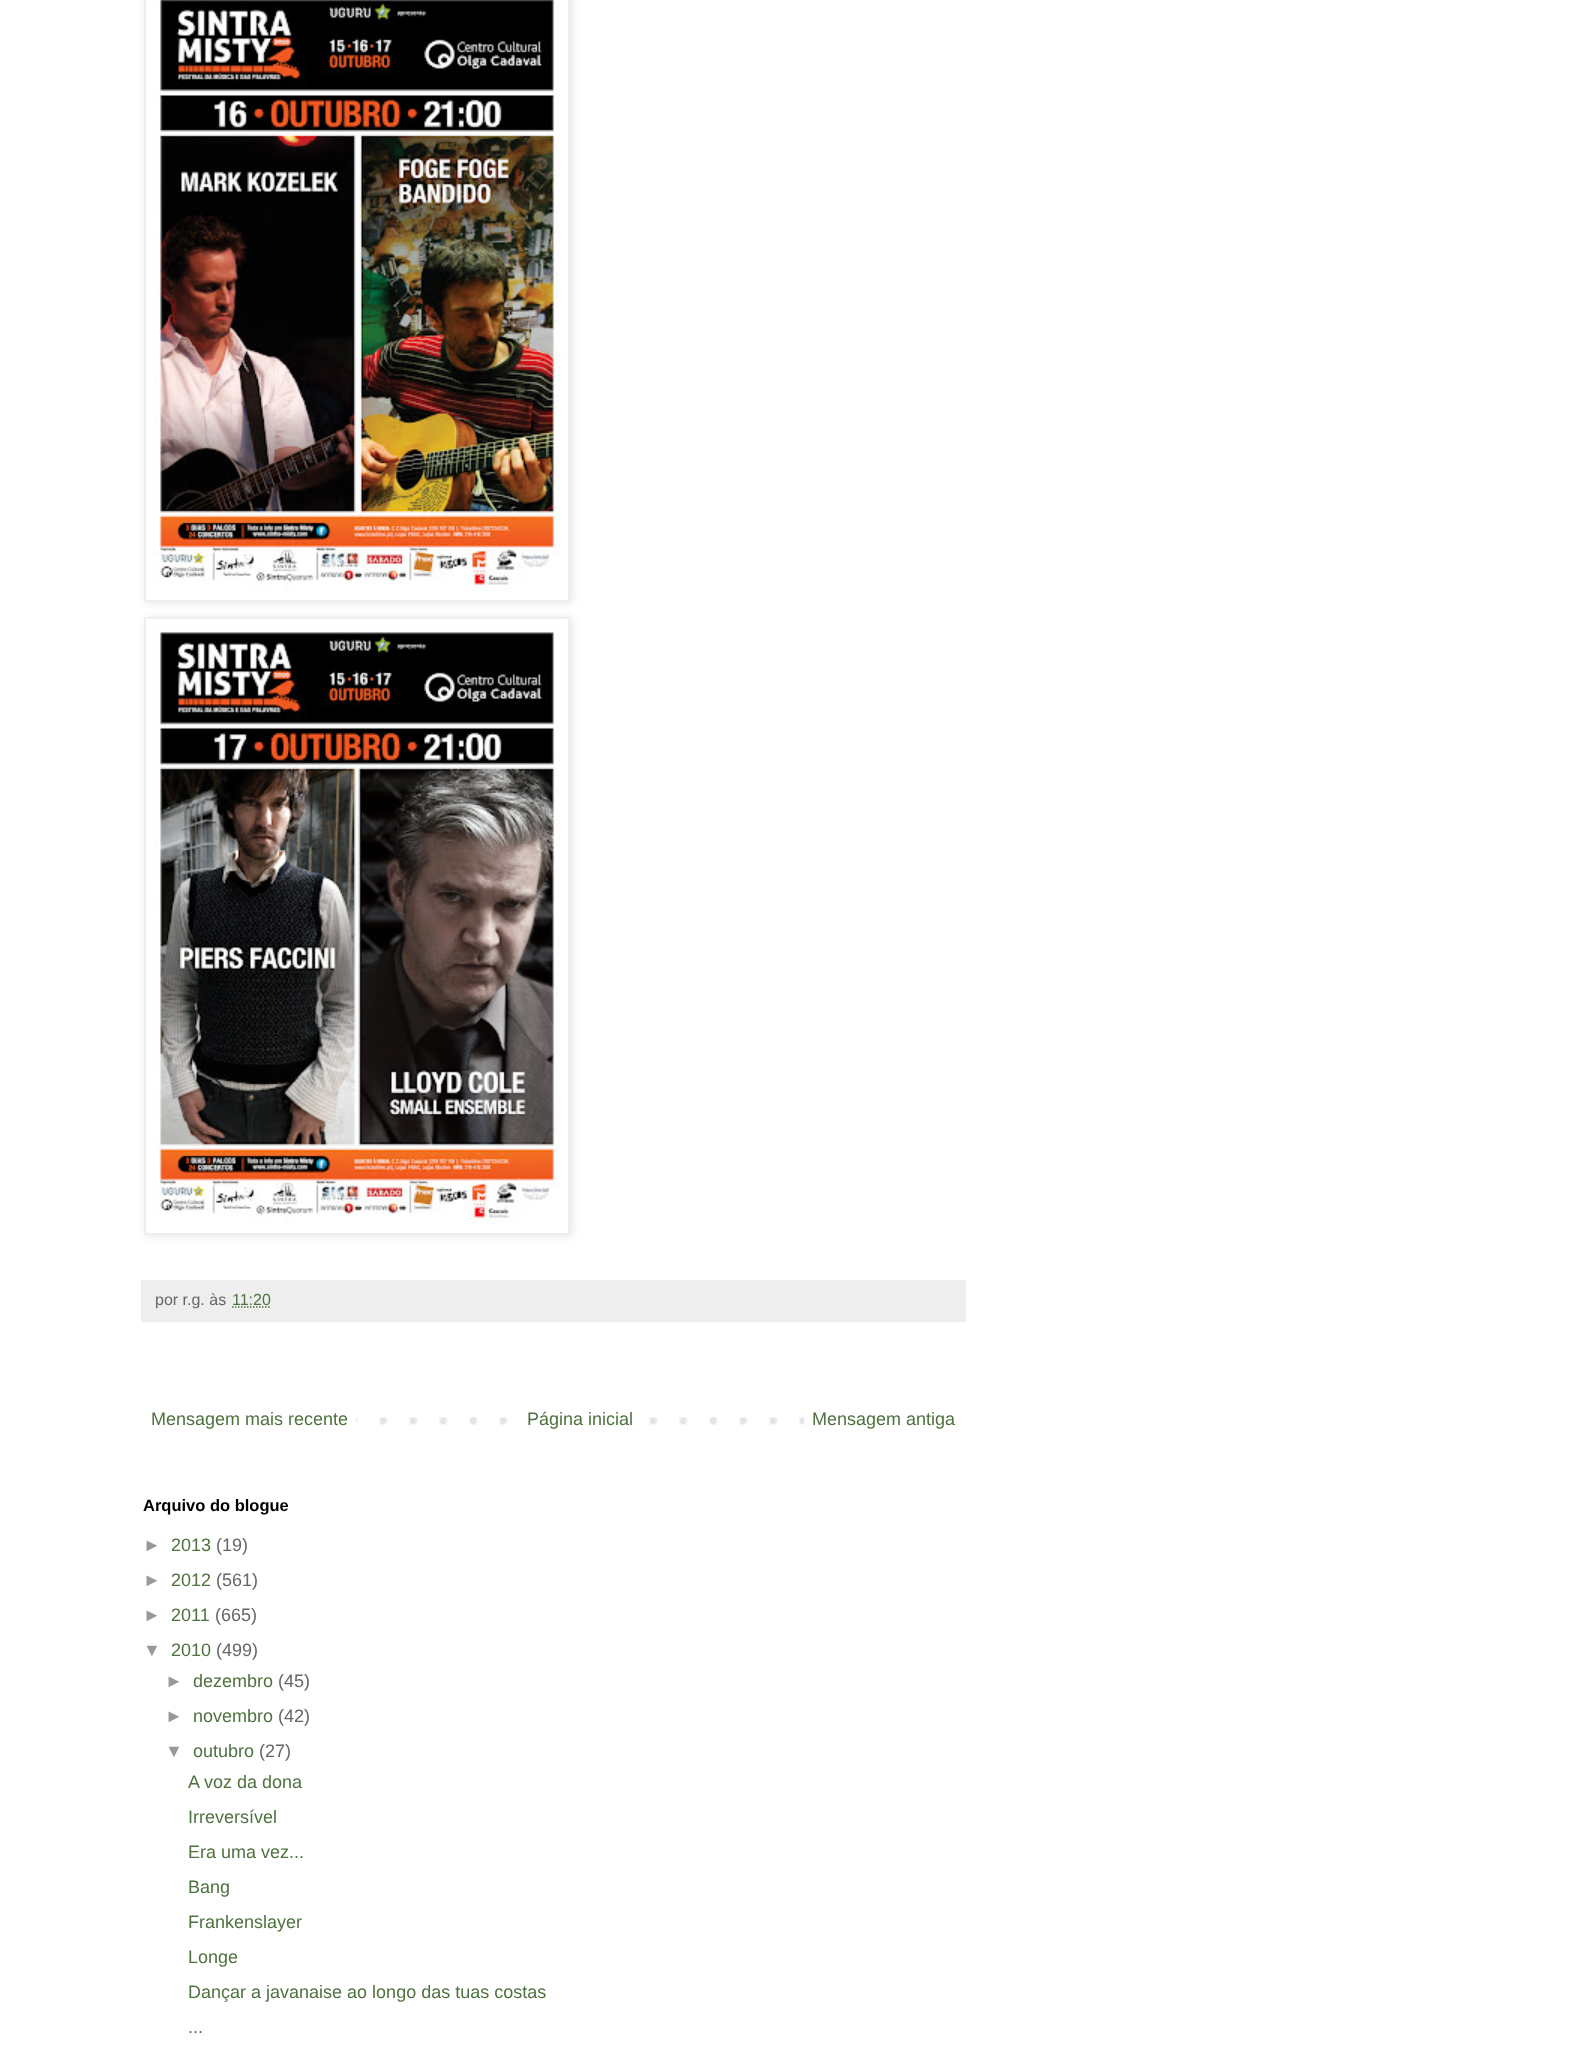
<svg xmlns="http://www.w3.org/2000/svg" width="1570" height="2061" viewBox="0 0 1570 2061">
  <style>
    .t1 { font: 16px Liberation Sans; fill: #666; }
    .t2 { font: 16px Liberation Sans; fill: #4e723f; }
    .t3 { font: 18px Liberation Sans; fill: #4e723f; }
    .t4 { font: bold 16.5px Liberation Sans; fill: #000; }
    .t5 { font: 18px Liberation Sans; fill: #999; }
    .t6 { font: 18px Liberation Sans; fill: #666; }
  </style>
  <rect width="100%" height="100%" fill="#fff"/>
  <rect x="146" y="-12" width="426" height="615" fill="#0000001a" filter="blur(4px)"/>
  <rect x="145" y="-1" width="424" height="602" fill="#fff" stroke="#eee" stroke-width="2"/>
  <image x="153" y="0" width="408" height="592" href="images/1.png"/>
  <rect x="146" y="618" width="426" height="618" fill="#0000001a" filter="blur(4px)"/>
  <rect x="145" y="618" width="424" height="616" fill="#fff" stroke="#eee" stroke-width="2"/>
  <image x="153" y="626" width="408" height="599" href="images/2.png"/>
  <rect x="141" y="1280" width="825" height="42" fill="#eee"/>
  <text x="155" y="1305" class="t1">por r.g. às</text>
  <text x="232" y="1305" class="t2">11:20</text>
  <path d="M232 1307H271" fill="none" stroke="#4e723f" stroke-width="1.5" stroke-dasharray="1.5 1.5"/>
  <image x="356" y="1417" width="448" height="8" href="images/3.png"/>
  <text x="151" y="1425" class="t3">Mensagem mais recente</text>
  <rect x="529" y="1417" width="99" height="8" fill="#fff"/>
  <text x="527" y="1425" class="t3">Página inicial</text>
  <text x="812" y="1425" class="t3">Mensagem antiga</text>
  <text x="143" y="1511" class="t4">Arquivo do blogue</text>
  <text x="143" y="1551" class="t5">►</text>
  <text x="171" y="1551" class="t3">2013</text>
  <text x="216" y="1551" class="t6">(19)</text>
  <text x="143" y="1586" class="t5">►</text>
  <text x="171" y="1586" class="t3">2012</text>
  <text x="216" y="1586" class="t6">(561)</text>
  <text x="143" y="1621" class="t5">►</text>
  <text x="171" y="1621" class="t3">2011</text>
  <text x="215" y="1621" class="t6">(665)</text>
  <text x="143" y="1656" class="t5">▼</text>
  <text x="171" y="1656" class="t3">2010</text>
  <text x="216" y="1656" class="t6">(499)</text>
  <text x="165" y="1687" class="t5">►</text>
  <text x="193" y="1687" class="t3">dezembro</text>
  <text x="278" y="1687" class="t6">(45)</text>
  <text x="165" y="1722" class="t5">►</text>
  <text x="193" y="1722" class="t3">novembro</text>
  <text x="278" y="1722" class="t6">(42)</text>
  <text x="165" y="1757" class="t5">▼</text>
  <text x="193" y="1757" class="t3">outubro</text>
  <text x="259" y="1757" class="t6">(27)</text>
  <text x="188" y="1788" class="t3">A voz da dona</text>
  <text x="188" y="1823" class="t3">Irreversível</text>
  <text x="188" y="1858" class="t3">Era uma vez...</text>
  <text x="188" y="1893" class="t3">Bang</text>
  <text x="188" y="1928" class="t3">Frankenslayer</text>
  <text x="188" y="1963" class="t3">Longe</text>
  <text x="188" y="1998" class="t3">Dançar a javanaise ao longo das tuas costas</text>
  <text x="188" y="2033" class="t3">...</text>
</svg>
